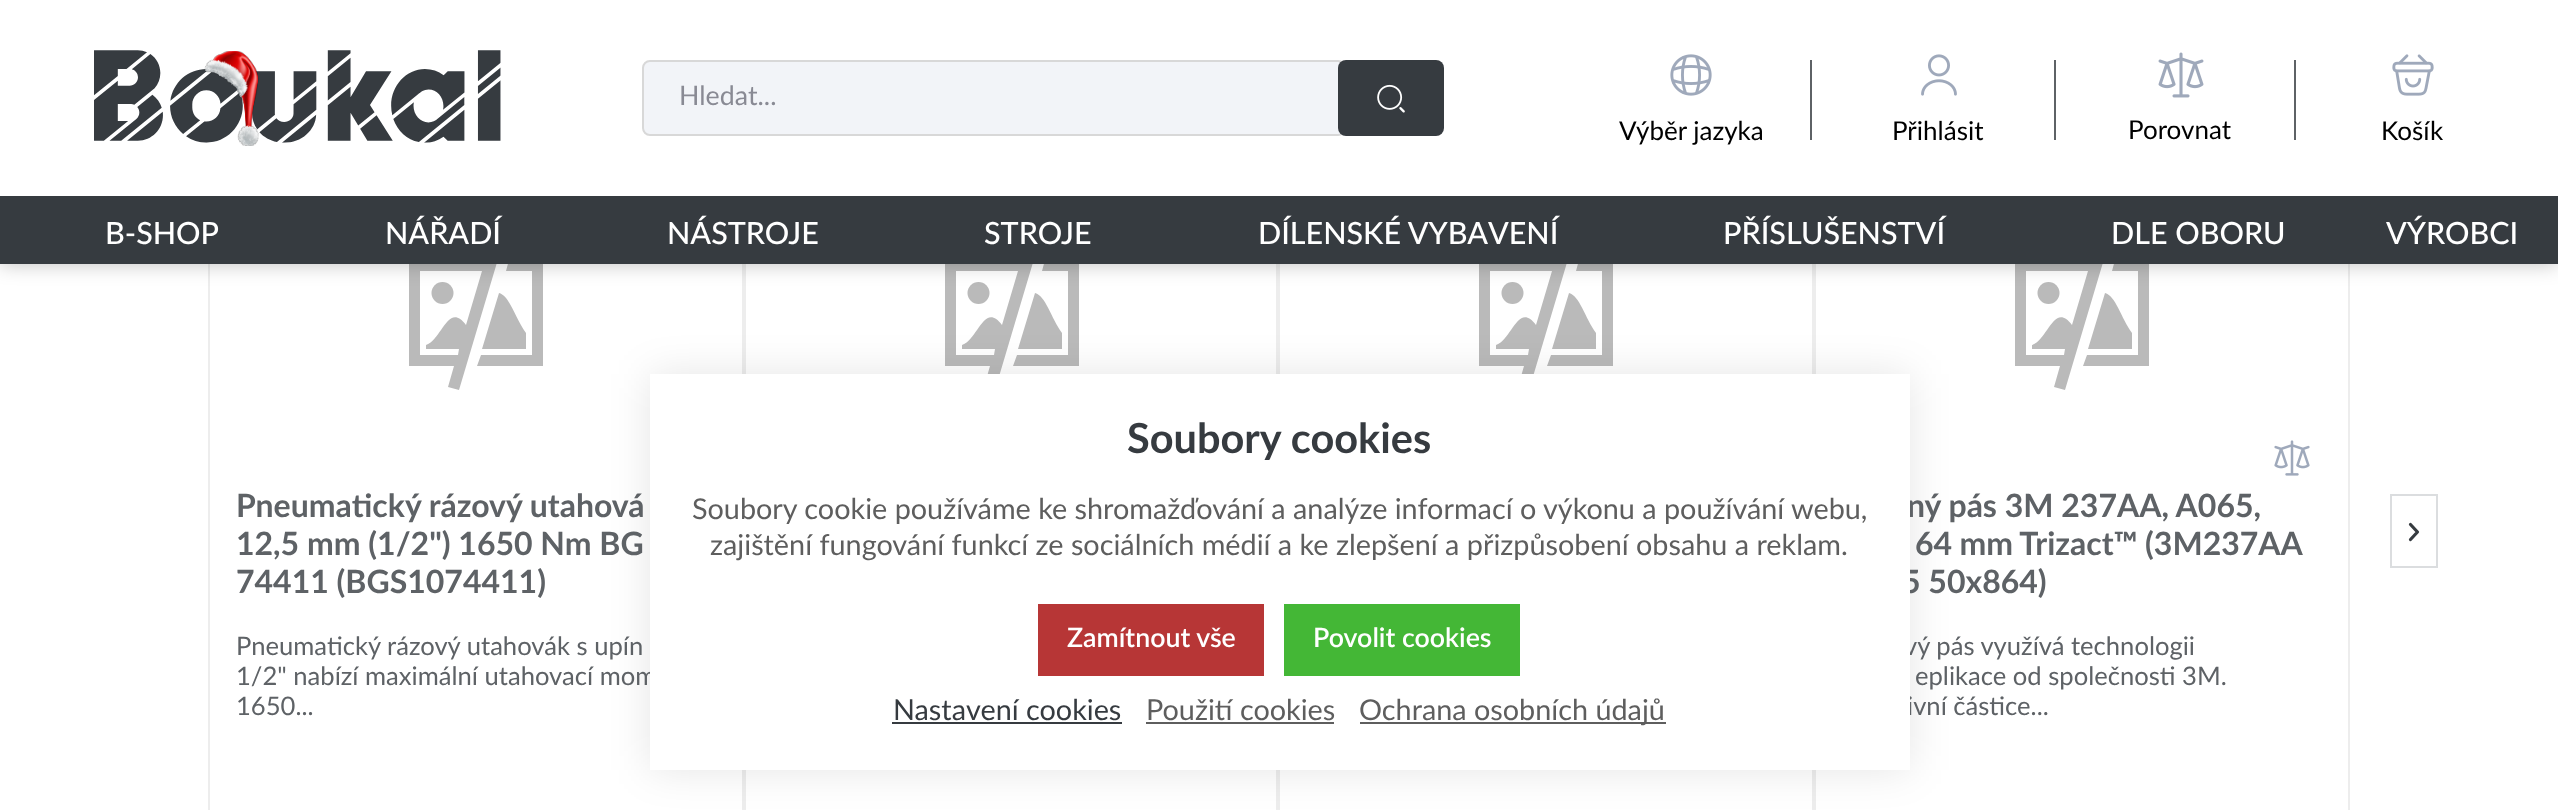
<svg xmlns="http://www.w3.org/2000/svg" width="2558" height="810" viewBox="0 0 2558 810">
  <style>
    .t1 { font: 26.75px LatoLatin; fill: #898a94; }
    .t2 { font: 26px LatoLatin; fill: #000; }
    .t3 { font: 500 30.5px LatoLatin; fill: #fff; }
    .t4 { font: 25.6px LatoLatin; fill: #5e6266; }
    .t5 { font: bold 32px LatoLatin; fill: #5e6266; }
    .t6 { font: bold 41.5px LatoLatin; fill: #363b40; }
    .t7 { font: 28.8px LatoLatin; fill: #5e5e5e; }
    .t8 { font: 600 26.75px LatoLatin; fill: #fff; }
    .t9 { font: 28.8px LatoLatin; fill: #363b40; }
  </style>
  <rect width="100%" height="100%" fill="#fff"/>
  <rect x="209" y="111" width="534" height="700" fill="none" stroke="#ededed" stroke-width="2"/>
  <circle cx="442.5" cy="293" r="11" fill="#bababa"/>
  <path d="M509 260L506 271H532V355H481L477 366H543V260Z" fill="#bababa"/>
  <path d="M482 349H526V333C515 318 510 296 499 293Z" fill="#bababa"/>
  <path d="M493 236L486 260H409V366H454L448 387L459 390L504 239ZM466 325C448 301 442 340 426 345V349H459L458 355H420V271H482Z" fill="#bababa"/>
  <rect x="745" y="111" width="532" height="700" fill="none" stroke="#ededed" stroke-width="2"/>
  <circle cx="978.5" cy="293" r="11" fill="#bababa"/>
  <path d="M1045 260L1042 271H1068V355H1017L1013 366H1079V260Z" fill="#bababa"/>
  <path d="M1018 349H1062V333C1051 318 1046 296 1035 293Z" fill="#bababa"/>
  <path d="M1029 236L1022 260H945V366H990L984 387L995 390L1040 239ZM1002 325C984 301 978 340 962 345V349H995L994 355H956V271H1018Z" fill="#bababa"/>
  <rect x="1279" y="111" width="534" height="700" fill="none" stroke="#ededed" stroke-width="2"/>
  <circle cx="1512.5" cy="293" r="11" fill="#bababa"/>
  <path d="M1579 260L1576 271H1602V355H1551L1547 366H1613V260Z" fill="#bababa"/>
  <path d="M1552 349H1596V333C1585 318 1580 296 1569 293Z" fill="#bababa"/>
  <path d="M1563 236L1556 260H1479V366H1524L1518 387L1529 390L1574 239ZM1536 325C1518 301 1512 340 1496 345V349H1529L1528 355H1490V271H1552Z" fill="#bababa"/>
  <rect x="1815" y="111" width="534" height="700" fill="none" stroke="#ededed" stroke-width="2"/>
  <circle cx="2048.5" cy="293" r="11" fill="#bababa"/>
  <path d="M2115 260L2112 271H2138V355H2087L2083 366H2149V260Z" fill="#bababa"/>
  <path d="M2088 349H2132V333C2121 318 2116 296 2105 293Z" fill="#bababa"/>
  <path d="M2099 236L2092 260H2015V366H2060L2054 387L2065 390L2110 239ZM2072 325C2054 301 2048 340 2032 345V349H2065L2064 355H2026V271H2088Z" fill="#bababa"/>
  <rect x="0" y="0" width="2558" height="264" fill="#00000040" filter="blur(10px)"/>
  <rect x="0" y="0" width="2558" height="196" fill="#fff"/>
  <image x="94" y="50" width="407" height="96" href="images/1.png"/>
  <rect x="643" y="61" width="702" height="74" rx="7" fill="#f2f4f8" stroke="#d8d8d8" stroke-width="2"/>
  <text x="679" y="105" class="t1">Hledat...</text>
  <rect x="1338" y="60" width="106" height="76" rx="8" fill="#363b40"/>
  <image x="1377" y="84" width="28" height="29" href="images/2.png"/>
  <image x="1670" y="54" width="42" height="42" href="images/3.png"/>
  <text x="1619" y="140" class="t2">Výběr jazyka</text>
  <rect x="1810" y="60" width="2" height="80" fill="#5e6266"/>
  <image x="1921" y="54" width="36" height="42" href="images/4.png"/>
  <text x="1892" y="140" class="t2">Přihlásit</text>
  <rect x="2054" y="60" width="2" height="80" fill="#5e6266"/>
  <image x="2158" y="52" width="46" height="46" href="images/5.png"/>
  <text x="2128" y="139" class="t2">Porovnat</text>
  <rect x="2294" y="60" width="2" height="80" fill="#5e6266"/>
  <image x="2392" y="54" width="42" height="42" href="images/6.png"/>
  <text x="2381" y="140" class="t2">Košík</text>
  <rect x="0" y="196" width="2558" height="68" fill="#363b40"/>
  <text x="105" y="244" class="t3">B-SHOP</text>
  <text x="385" y="244" class="t3">NÁŘADÍ</text>
  <text x="667" y="244" class="t3">NÁSTROJE</text>
  <text x="984" y="244" class="t3">STROJE</text>
  <text x="1258" y="244" class="t3">DÍLENSKÉ VYBAVENÍ</text>
  <text x="1723" y="244" class="t3">PŘÍSLUŠENSTVÍ</text>
  <text x="2111" y="244" class="t3">DLE OBORU</text>
  <text x="2386" y="244" class="t3">VÝROBCI</text>
  <rect x="650" y="374" width="1260" height="396" fill="#0000001a" filter="blur(20px)"/>
  <text x="236" y="685" class="t4">1/2" nabízí maximální utahovací mom</text>
  <text x="1907" y="517" class="t5">ný pás 3M 237AA, A065,</text>
  <text x="1902" y="593" class="t5">5 50x864)</text>
  <text x="1904" y="655" class="t4">vý pás využívá technologii</text>
  <text x="1907" y="715" class="t4">ivní částice...</text>
  <rect x="650" y="374" width="1260" height="396" fill="#fff"/>
  <text x="1127" y="453" class="t6">Soubory cookies</text>
  <text x="692" y="519" class="t7">Soubory cookie používáme ke shromažďování a analýze informací o výkonu a používání webu,</text>
  <text x="710" y="555" class="t7">zajištění fungování funkcí ze sociálních médií a ke zlepšení a přizpůsobení obsahu a reklam.</text>
  <rect x="1038" y="604" width="226" height="72" fill="#b73636"/>
  <text x="1067" y="647" class="t8">Zamítnout vše</text>
  <rect x="1284" y="604" width="236" height="72" fill="#44b736"/>
  <text x="1313" y="647" class="t8">Povolit cookies</text>
  <text x="893" y="720" class="t9">Nastavení cookies</text>
  <rect x="892" y="722" width="230" height="2" fill="#363b40"/>
  <text x="1146" y="720" class="t7">Použití cookies</text>
  <rect x="1146" y="722" width="188" height="2" fill="#5e5e5e"/>
  <rect x="1360" y="722" width="306" height="2" fill="#5e5e5e"/>
  <text x="1359" y="720" class="t7">Ochrana osobních údajů</text>
  <text x="236" y="517" class="t5">Pneumatický rázový utahová</text>
  <text x="236" y="555" class="t5">12,5 mm (1/2") 1650 Nm BG</text>
  <text x="236" y="593" class="t5">74411 (BGS1074411)</text>
  <text x="236" y="655" class="t4">Pneumatický rázový utahovák s upín</text>
  <text x="236" y="715" class="t4">1650...</text>
  <image x="2274" y="440" width="36" height="36" href="images/7.png"/>
  <text x="1915" y="555" word-spacing="-0.5" class="t5">64 mm Trizact™ (3M237AA</text>
  <text x="1915" y="685" class="t4">eplikace od společnosti 3M.</text>
  <rect x="2391" y="495" width="46" height="72" fill="none" stroke="#dbdddf" stroke-width="2"/>
  <path d="M2410.5 524.5L2417.5 532L2410.5 539.5" fill="none" stroke="#363b40" stroke-width="3.2" stroke-linecap="round" stroke-linejoin="round"/>
</svg>
